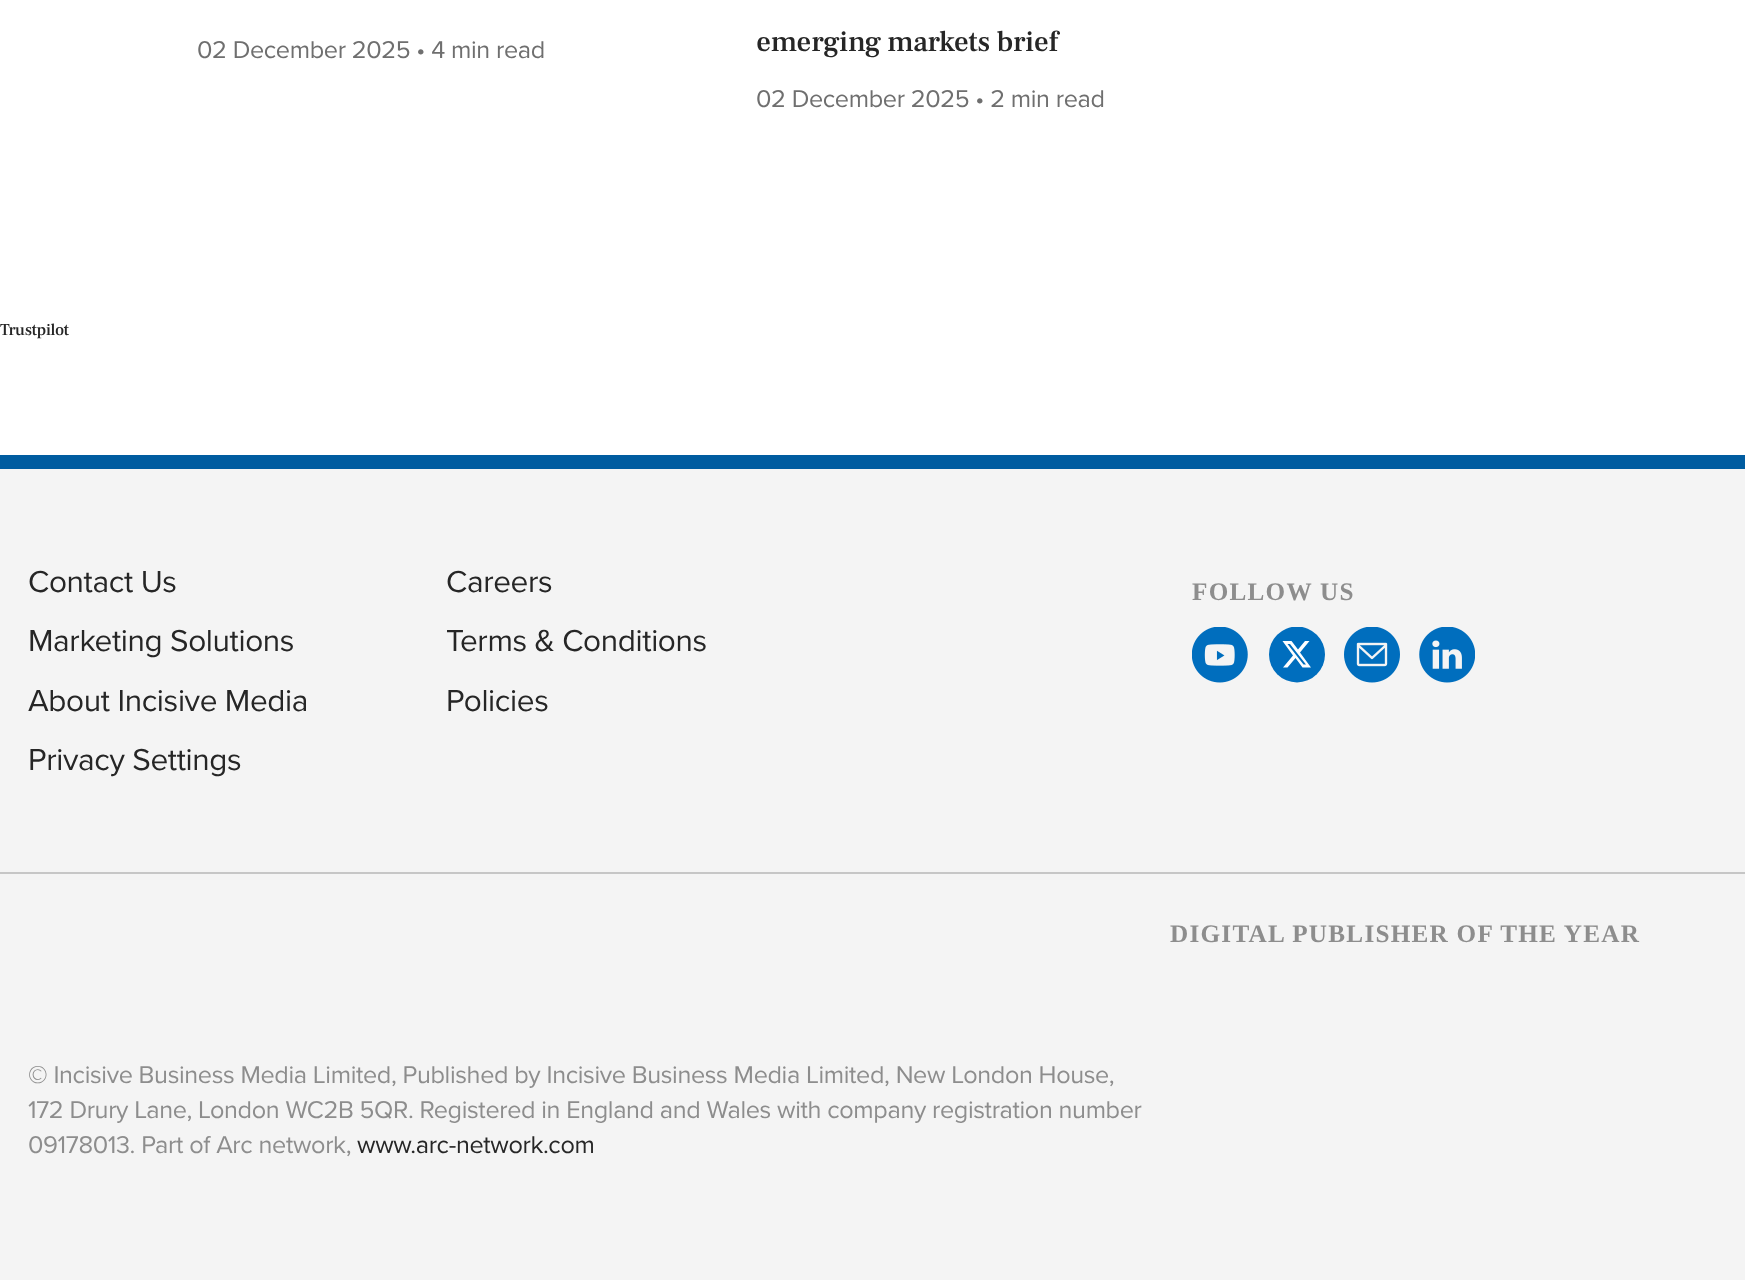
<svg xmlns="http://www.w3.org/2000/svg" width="1745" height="1280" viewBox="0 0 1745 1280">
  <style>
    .t1 { font: 25.2px Proxima Nova; letter-spacing: -0.35px; fill: #6f6f6f; }
    .t2 { font: 500 29.25px Frank Ruhl Libre; letter-spacing: -0.35px; fill: #262626; }
    .t3 { font: 500 16.5px Frank Ruhl Libre; letter-spacing: -0.35px; fill: #262626; }
    .t4 { font: 31.5px Proxima Nova; letter-spacing: -0.35px; fill: #262626; }
    .t5 { font: bold 25.2px Liberation Serif; letter-spacing: 1.25px; fill: #8d8d8d; }
    .t6 { font: 25.2px Proxima Nova; letter-spacing: -0.35px; fill: #8d8d8d; }
    .t7 { font: 25.2px Proxima Nova; letter-spacing: -0.35px; fill: #262626; }
  </style>
  <defs>
    <clipPath id="clip1"><rect x="1269" y="627" width="56" height="56"/></clipPath>
  </defs>
  <rect width="100%" height="100%" fill="#fff"/>
  <text x="197" y="58" class="t1">02 December 2025 • 4 min read</text>
  <text x="756" y="51" class="t2">emerging markets brief</text>
  <text x="756" y="107" class="t1">02 December 2025 • 2 min read</text>
  <text x="0" y="335" class="t3">Trustpilot</text>
  <rect x="0" y="469" width="1745" height="811" fill="#f4f4f4"/>
  <rect x="0" y="455" width="1745" height="14" fill="#005ca0"/>
  <rect x="0" y="872" width="1745" height="2" fill="#c6c6c6"/>
  <text x="28" y="592" class="t4">Contact Us</text>
  <text x="28" y="651" class="t4">Marketing Solutions</text>
  <text x="28" y="711" class="t4">About Incisive Media</text>
  <text x="28" y="770" class="t4">Privacy Settings</text>
  <text x="446" y="592" class="t4">Careers</text>
  <text x="446" y="651" class="t4">Terms &amp; Conditions</text>
  <text x="446" y="711" class="t4">Policies</text>
  <text x="1192" y="600" class="t5">FOLLOW US</text>
  <image x="1192" y="627" width="56" height="56" href="images/1.png"/>
  <g clip-path="url(#clip1)">
    <circle cx="1297" cy="654.5" r="28" fill="#006ebe"/>
  </g>
  <path d="M1305 641H1309.5L1300 652.5L1311 667.5H1302.5L1295.5 658L1287.5 667.5H1283L1293 655.5L1282.5 641H1291.5L1298 649.5ZM1303.5 664.5H1306L1290 644H1287.5Z" fill="#fff"/>
  <image x="1344" y="627" width="56" height="56" href="images/2.png"/>
  <image x="1419" y="627" width="56" height="56" href="images/3.png"/>
  <text x="1170" y="942" class="t5">DIGITAL PUBLISHER OF THE YEAR</text>
  <text x="28" y="1083" class="t6">© Incisive Business Media Limited, Published by Incisive Business Media Limited, New London House,</text>
  <text x="28" y="1118" class="t6">172 Drury Lane, London WC2B 5QR. Registered in England and Wales with company registration number</text>
  <text x="28" y="1153" class="t6">09178013. Part of Arc network,</text>
  <text x="357" y="1153" class="t7">www.arc-network.com</text>
</svg>
